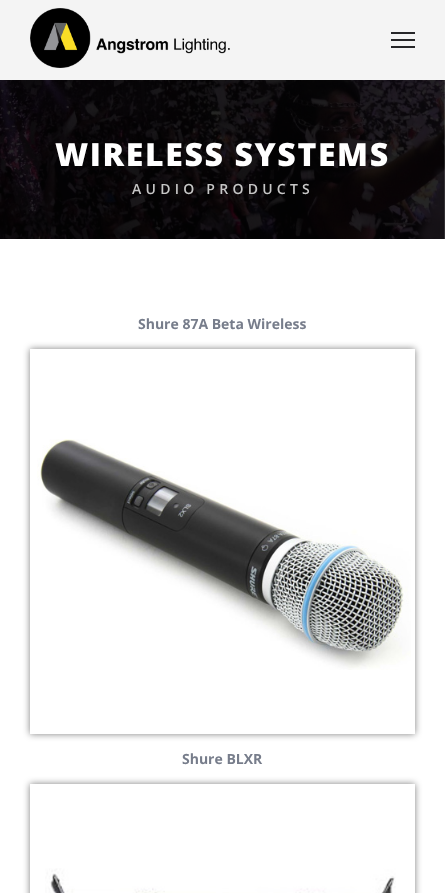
<svg xmlns="http://www.w3.org/2000/svg" width="445" height="893" viewBox="0 0 445 893">
  <style>
    .t1 { font: 800 32px Open Sans; letter-spacing: 1.6px; fill: #fff; }
    .t2 { font: 600 14px Open Sans; letter-spacing: 4.25px; fill: #c6c6c6; }
    .t3 { font: bold 14px Open Sans; fill: #777d8b; }
  </style>
  <defs>
    <clipPath id="clip1"><path d="M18 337H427V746H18ZM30 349H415V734H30Z" clip-rule="evenodd"/></clipPath>
    <clipPath id="clip2"><path d="M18 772H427V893H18ZM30 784H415V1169H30Z" clip-rule="evenodd"/></clipPath>
  </defs>
  <rect width="100%" height="100%" fill="#fff"/>
  <rect x="0" y="0" width="445" height="80" fill="#f4f4f4"/>
  <image x="30" y="8" width="200" height="60" href="images/1.png"/>
  <rect x="391" y="32" width="24" height="2" fill="#262628"/>
  <rect x="391" y="39" width="24" height="2" fill="#262628"/>
  <rect x="391" y="46" width="24" height="2" fill="#262628"/>
  <image x="0" y="80" width="445" height="159" href="images/2.png"/>
  <text x="55" y="166" class="t1">WIRELESS SYSTEMS</text>
  <text x="132" y="194" class="t2">AUDIO PRODUCTS</text>
  <text x="138" y="329" class="t3">Shure 87A Beta Wireless</text>
  <g clip-path="url(#clip1)">
    <rect x="30" y="349" width="385" height="385" fill="#00000080" filter="blur(3.5px)"/>
  </g>
  <image x="37" y="439" width="374" height="231" href="images/3.png"/>
  <text x="182" y="764" class="t3">Shure BLXR</text>
  <g clip-path="url(#clip2)">
    <rect x="30" y="784" width="385" height="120" fill="#00000080" filter="blur(3.5px)"/>
  </g>
  <image x="45" y="868" width="351" height="25" href="images/4.png"/>
</svg>
